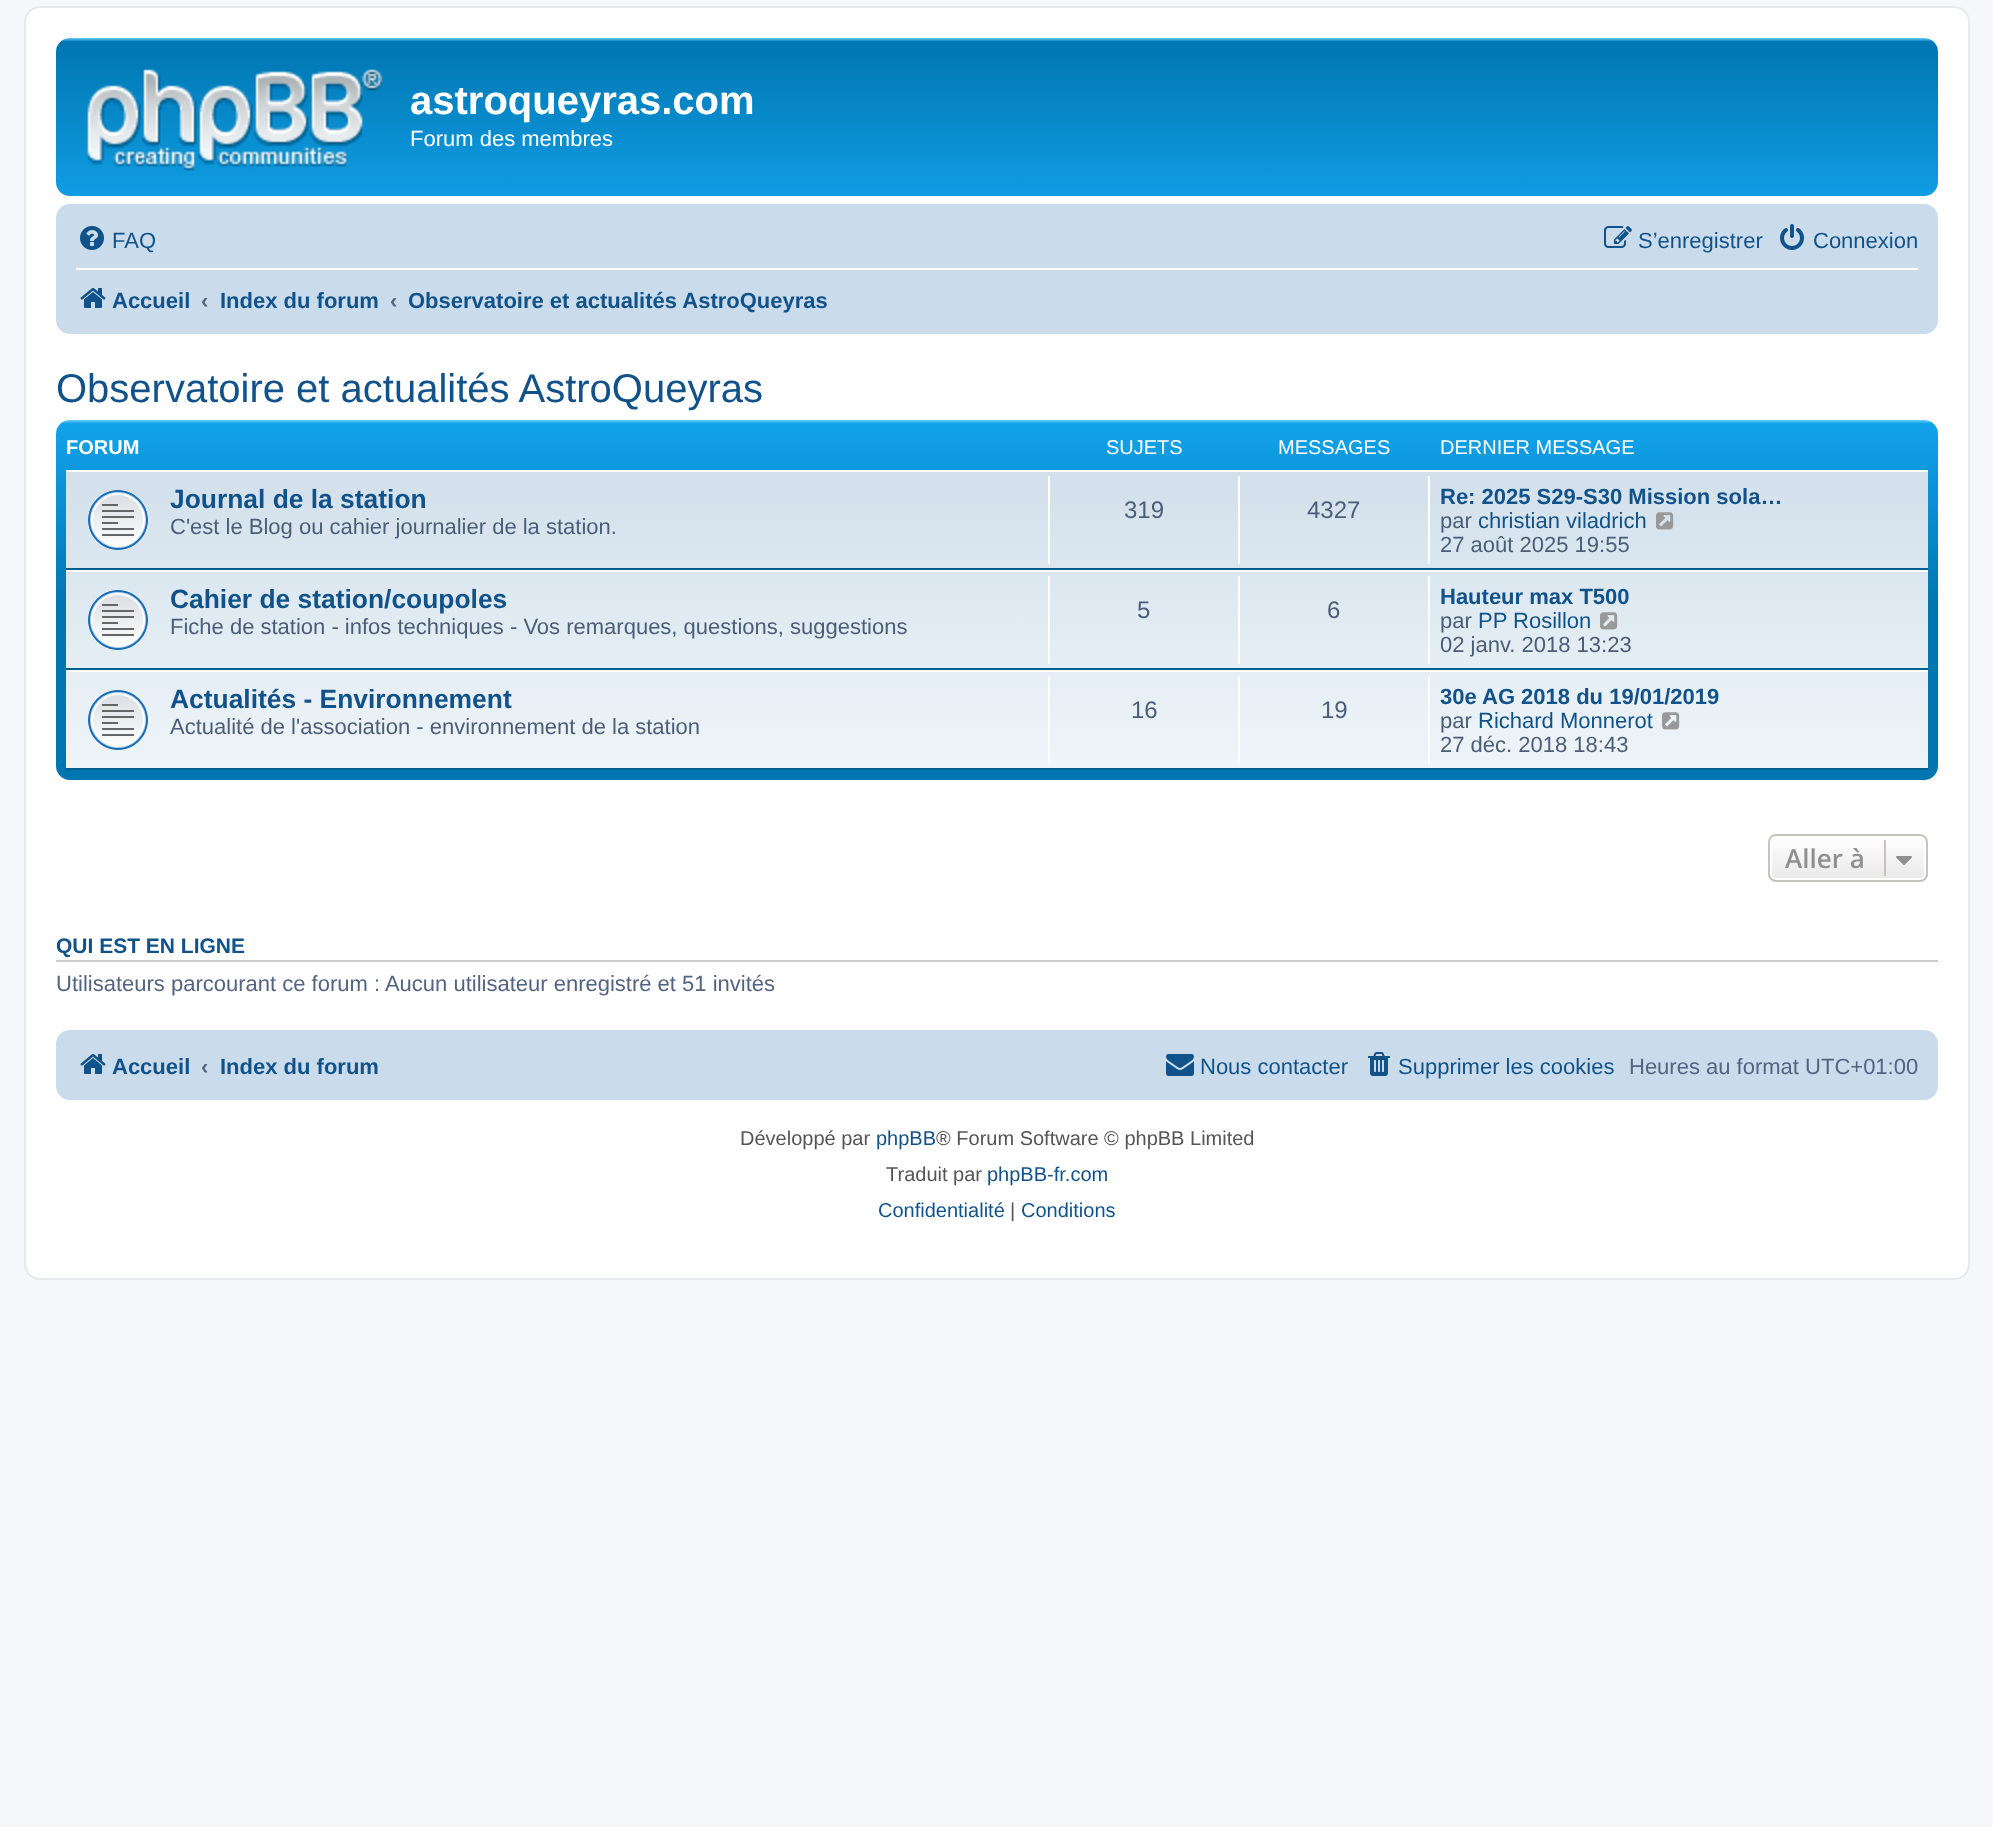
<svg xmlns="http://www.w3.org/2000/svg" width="1993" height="1827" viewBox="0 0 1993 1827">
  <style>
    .t1 { font: bold 40px Liberation Sans; fill: #fff; }
    .t2 { font: 22px Liberation Sans; fill: #fff; }
    .t3 { font: 22px Liberation Sans; fill: #105289; }
    .t4 { font: bold 22px Liberation Sans; fill: #105289; }
    .t5 { font: bold 22px Liberation Sans; fill: #536482; }
    .t6 { font: 40px Liberation Sans; fill: #105289; }
    .t7 { font: bold 20px Liberation Sans; fill: #fff; }
    .t8 { font: 20px Liberation Sans; fill: #fff; }
    .t9 { font: bold 26.4px Liberation Sans; fill: #105289; }
    .t10 { font: 22px Liberation Sans; fill: #4c5d77; }
    .t11 { font: 24px Liberation Sans; fill: #4c5d77; }
    .t12 { font: 600 26px Open Sans; fill: #8f8f8f; }
    .t13 { font: bold 21px Liberation Sans; fill: #105289; }
    .t14 { font: 22px Liberation Sans; fill: #536482; }
    .t15 { font: 20px Liberation Sans; fill: #555; }
    .t16 { font: 20px Liberation Sans; fill: #105289; }
  </style>
  <defs>
    <linearGradient id="g1" gradientUnits="userSpaceOnUse" x1="997" y1="38" x2="997" y2="222"><stop offset="0" stop-color="#6aceff"/><stop offset="0.02" stop-color="#0076b1"/><stop offset="1" stop-color="#12a3eb"/></linearGradient>
    <linearGradient id="g2" gradientUnits="userSpaceOnUse" x1="997" y1="420" x2="997" y2="780"><stop offset="0" stop-color="#6aceff"/><stop offset="0.01" stop-color="#12a3eb"/><stop offset="0.51" stop-color="#0076b1"/><stop offset="1" stop-color="#0076b1"/></linearGradient>
    <linearGradient id="g3" gradientUnits="userSpaceOnUse" x1="997" y1="470" x2="997" y2="770"><stop offset="0" stop-color="#d2e0eb"/><stop offset="1" stop-color="#eef5f9"/></linearGradient>
    <clipPath id="clip1"><rect x="1768" y="834" width="160" height="48" rx="8"/></clipPath>
    <linearGradient id="g4" gradientUnits="userSpaceOnUse" x1="1848" y1="836" x2="1848" y2="880"><stop offset="0" stop-color="#fff"/><stop offset="1" stop-color="#e9e9e9"/></linearGradient>
  </defs>
  <rect width="100%" height="100%" fill="#f5f7fa"/>
  <rect x="25" y="7" width="1944" height="1272" rx="15" fill="#fff" stroke="#e6e9ed" stroke-width="2"/>
  <rect x="56" y="38" width="1882" height="158" rx="14" fill="url(#g1)"/>
  <image x="87" y="69" width="296" height="102" href="images/1.png"/>
  <text x="410" y="114" class="t1">astroqueyras.com</text>
  <text x="410" y="146" class="t2">Forum des membres</text>
  <rect x="56" y="204" width="1882" height="130" rx="14" fill="#cadceb"/>
  <image x="80" y="226" width="24" height="24" href="images/2.png"/>
  <text x="112" y="248" class="t3">FAQ</text>
  <image x="1604" y="226" width="28" height="22" href="images/3.png"/>
  <text x="1638" y="248" class="t3">S’enregistrer</text>
  <image x="1780" y="224" width="24" height="26" href="images/4.png"/>
  <text x="1813" y="248" class="t3">Connexion</text>
  <rect x="76" y="268" width="1842" height="2" fill="#fff"/>
  <image x="80" y="288" width="26" height="20" href="images/5.png"/>
  <text x="112" y="308" class="t4">Accueil</text>
  <text x="201" y="308" class="t5">‹</text>
  <text x="220" y="308" class="t4">Index du forum</text>
  <text x="390" y="308" class="t5">‹</text>
  <text x="408" y="308" class="t4">Observatoire et actualités AstroQueyras</text>
  <text x="56" y="402" class="t6">Observatoire et actualités AstroQueyras</text>
  <rect x="56" y="420" width="1882" height="360" rx="14" fill="url(#g2)"/>
  <text x="66" y="454" class="t7">FORUM</text>
  <text x="1106" y="454" class="t8">SUJETS</text>
  <text x="1278" y="454" class="t8">MESSAGES</text>
  <text x="1440" y="454" class="t8">DERNIER MESSAGE</text>
  <rect x="66" y="472" width="1862" height="296" fill="url(#g3)"/>
  <rect x="66" y="470" width="1862" height="2" fill="#fff"/>
  <rect x="66" y="568" width="1862" height="2" fill="#00608f"/>
  <image x="88" y="490" width="60" height="60" href="images/6.png"/>
  <text x="170" y="508" class="t9">Journal de la station</text>
  <text x="170" y="534" class="t10">C'est le Blog ou cahier journalier de la station.</text>
  <rect x="1048" y="476" width="2" height="88" fill="#fff"/>
  <text x="1124" y="518" class="t11">319</text>
  <rect x="1238" y="476" width="2" height="88" fill="#fff"/>
  <text x="1307" y="518" class="t11">4327</text>
  <rect x="1428" y="476" width="2" height="88" fill="#fff"/>
  <text x="1440" y="504" class="t4">Re: 2025 S29-S30 Mission sola…</text>
  <text x="1440" y="528" class="t10">par</text>
  <text x="1478" y="528" class="t3">christian viladrich</text>
  <image x="1656" y="512" width="18" height="18" href="images/7.png"/>
  <text x="1440" y="552" class="t10">27 août 2025 19:55</text>
  <rect x="66" y="570" width="1862" height="2" fill="#fff"/>
  <rect x="66" y="668" width="1862" height="2" fill="#00608f"/>
  <image x="88" y="590" width="60" height="60" href="images/8.png"/>
  <text x="170" y="608" class="t9">Cahier de station/coupoles</text>
  <text x="170" y="634" class="t10">Fiche de station - infos techniques - Vos remarques, questions, suggestions</text>
  <rect x="1048" y="576" width="2" height="88" fill="#fff"/>
  <text x="1137" y="618" class="t11">5</text>
  <rect x="1238" y="576" width="2" height="88" fill="#fff"/>
  <text x="1327" y="618" class="t11">6</text>
  <rect x="1428" y="576" width="2" height="88" fill="#fff"/>
  <text x="1440" y="604" class="t4">Hauteur max T500</text>
  <text x="1440" y="628" class="t10">par</text>
  <text x="1478" y="628" class="t3">PP Rosillon</text>
  <image x="1600" y="612" width="18" height="18" href="images/9.png"/>
  <text x="1440" y="652" class="t10">02 janv. 2018 13:23</text>
  <rect x="66" y="670" width="1862" height="2" fill="#fff"/>
  <rect x="66" y="768" width="1862" height="2" fill="#00608f"/>
  <image x="88" y="690" width="60" height="60" href="images/10.png"/>
  <text x="170" y="708" class="t9">Actualités - Environnement</text>
  <text x="170" y="734" class="t10">Actualité de l'association - environnement de la station</text>
  <rect x="1048" y="676" width="2" height="88" fill="#fff"/>
  <text x="1131" y="718" class="t11">16</text>
  <rect x="1238" y="676" width="2" height="88" fill="#fff"/>
  <text x="1321" y="718" class="t11">19</text>
  <rect x="1428" y="676" width="2" height="88" fill="#fff"/>
  <text x="1440" y="704" class="t4">30e AG 2018 du 19/01/2019</text>
  <text x="1440" y="728" class="t10">par</text>
  <text x="1478" y="728" class="t3">Richard Monnerot</text>
  <image x="1662" y="712" width="18" height="18" href="images/11.png"/>
  <text x="1440" y="752" class="t10">27 déc. 2018 18:43</text>
  <g clip-path="url(#clip1)">
    <rect x="1768" y="836" width="160" height="44" fill="url(#g4)"/>
  </g>
  <rect x="1771" y="837" width="154" height="42" rx="5" fill="none" stroke="#fff" stroke-width="2"/>
  <rect x="1769" y="835" width="158" height="46" rx="7" fill="none" stroke="#c7c3bf" stroke-width="2"/>
  <text x="1785" y="868" class="t12">Aller à</text>
  <rect x="1884" y="840" width="2" height="36" fill="#c7c3bf"/>
  <image x="1896" y="856" width="16" height="9" href="images/12.png"/>
  <rect x="56" y="960" width="1882" height="2" fill="#ccc"/>
  <text x="56" y="953" class="t13">QUI EST EN LIGNE</text>
  <text x="56" y="991" class="t14">Utilisateurs parcourant ce forum : Aucun utilisateur enregistré et 51 invités</text>
  <rect x="56" y="1030" width="1882" height="70" rx="14" fill="#cadceb"/>
  <image x="80" y="1054" width="26" height="20" href="images/5.png"/>
  <text x="112" y="1074" class="t4">Accueil</text>
  <text x="201" y="1074" class="t5">‹</text>
  <text x="220" y="1074" class="t4">Index du forum</text>
  <image x="1166" y="1054" width="28" height="22" href="images/13.png"/>
  <text x="1200" y="1074" class="t3">Nous contacter</text>
  <image x="1368" y="1052" width="22" height="24" href="images/14.png"/>
  <text x="1398" y="1074" class="t3">Supprimer les cookies</text>
  <text x="1629" y="1074" class="t14">Heures au format UTC+01:00</text>
  <text x="740" y="1145" class="t15">Développé par</text>
  <text x="876" y="1145" class="t16">phpBB</text>
  <text x="936" y="1145" class="t15">® Forum Software © phpBB Limited</text>
  <text x="886" y="1181" class="t15">Traduit par</text>
  <text x="987" y="1181" class="t16">phpBB-fr.com</text>
  <text x="878" y="1217" class="t16">Confidentialité</text>
  <text x="1010" y="1217" class="t15">|</text>
  <text x="1021" y="1217" class="t16">Conditions</text>
</svg>
